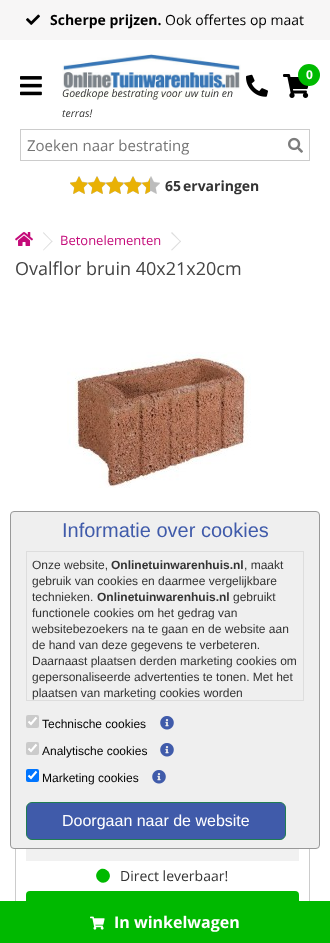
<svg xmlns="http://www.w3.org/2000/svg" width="330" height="943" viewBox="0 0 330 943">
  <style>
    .t1 { font: bold 14px Open Sans; fill: #000; }
    .t2 { font: 14px Open Sans; fill: #000; }
    .t3 { font: bold 12px Open Sans; fill: #fff; }
    .t4 { font: italic 10.5px Open Sans; fill: #333; }
    .t5 { font: 15px Open Sans; fill: #757575; }
    .t6 { font: bold 14px Open Sans; fill: #333; }
    .t7 { font: 13px Open Sans; fill: #c40a79; }
    .t8 { font: 18px Open Sans; fill: #444; }
    .t9 { font: 14px Open Sans; fill: #333; }
    .t10 { font: bold 16px Open Sans; fill: #fff; }
    .t11 { font: 20px Liberation Sans; fill: #405baa; }
    .t12 { font: 12px Liberation Sans; fill: #333; }
    .t13 { font: bold 12px Liberation Sans; fill: #333; }
    .t14 { font: 12px Liberation Sans; fill: #000; }
    .t15 { font: 16px Liberation Sans; fill: #fff; }
  </style>
  <rect width="100%" height="100%" fill="#fff"/>
  <rect x="0" y="0" width="330" height="40" fill="#f7f6f6"/>
  <image x="26" y="14" width="14" height="11" href="images/1.png"/>
  <text x="50" y="25" class="t1">Scherpe prijzen.</text>
  <text x="165" y="25" class="t2">Ook offertes op maat</text>
  <image x="20" y="76" width="22" height="20" href="images/2.png"/>
  <image x="246" y="74" width="22" height="23" href="images/3.png"/>
  <image x="283" y="74" width="26" height="24" href="images/4.png"/>
  <circle cx="309" cy="75" r="11" fill="#00ba01"/>
  <text x="306" y="79" class="t3">0</text>
  <image x="62" y="54" width="179" height="45" href="images/5.png"/>
  <text x="62" y="97" class="t4">Goedkope bestrating voor uw tuin en</text>
  <text x="62" y="117" class="t4">terras!</text>
  <rect x="20.5" y="129.5" width="289" height="31" fill="none" stroke="#ccc"/>
  <text x="27" y="151" class="t5">Zoeken naar bestrating</text>
  <image x="288" y="137" width="15" height="16" href="images/6.png"/>
  <image x="70" y="176" width="90" height="18" href="images/7.png"/>
  <image x="70" y="176" width="80" height="18" href="images/8.png"/>
  <text x="165" y="191" class="t6">65</text>
  <text x="183" y="191" class="t6">ervaringen</text>
  <image x="15" y="232" width="18" height="14" href="images/9.png"/>
  <path d="M43 233L43.5 232L52.5 241.5L52 242Z" fill="#ddd"/>
  <path d="M43 250L52 240.5L52.5 241.5L43.5 250.5Z" fill="#ddd"/>
  <text x="60" y="245" class="t7">Betonelementen</text>
  <path d="M171 233L172 232L181 241.5L180.5 242Z" fill="#ddd"/>
  <path d="M171 250L180.5 240.5L181 241.5L172 250.5Z" fill="#ddd"/>
  <text x="15" y="275" class="t8">Ovalflor bruin 40x21x20cm</text>
  <image x="67" y="352" width="184" height="136" href="images/10.png"/>
  <rect x="15.5" y="645.5" width="294" height="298" fill="none" stroke="#ccc"/>
  <rect x="26" y="849" width="273" height="12" fill="#f1f1f1"/>
  <path d="M98 871C104.5 864.5 114 874 108 880.5C101.5 887 92 877.5 98 871Z" fill="#00b900"/>
  <text x="120" y="881" class="t9">Direct leverbaar!</text>
  <rect x="26" y="891" width="273" height="50" rx="4" fill="#00b900"/>
  <rect x="0" y="901" width="330" height="42" fill="#00b900"/>
  <image x="90" y="916" width="15" height="14" href="images/11.png"/>
  <text x="114" y="928" class="t10">In winkelwagen</text>
  <rect x="10.5" y="511.5" width="309" height="337" rx="3.5" fill="#efefef" stroke="#999"/>
  <text x="62" y="537" class="t11">Informatie over cookies</text>
  <rect x="26.5" y="551.5" width="277" height="149" fill="none" stroke="#ddd"/>
  <text x="32" y="569" class="t12">Onze website,</text>
  <text x="111" y="569" class="t13">Onlinetuinwarenhuis.nl</text>
  <text x="244" y="569" class="t12">, maakt</text>
  <text x="32" y="585" class="t12">gebruik van cookies en daarmee vergelijkbare</text>
  <text x="32" y="601" class="t12">technieken.</text>
  <text x="97" y="601" class="t13">Onlinetuinwarenhuis.nl</text>
  <text x="233" y="601" class="t12">gebruikt</text>
  <text x="32" y="617" class="t12">functionele cookies om het gedrag van</text>
  <text x="32" y="633" class="t12">websitebezoekers na te gaan en de website aan</text>
  <text x="32" y="649" class="t12">de hand van deze gegevens te verbeteren.</text>
  <text x="32" y="665" class="t12">Daarnaast plaatsen derden marketing cookies om</text>
  <text x="32" y="681" class="t12">gepersonaliseerde advertenties te tonen. Met het</text>
  <text x="32" y="697" class="t12">plaatsen van marketing cookies worden</text>
  <rect x="26" y="715" width="13" height="13" rx="2" fill="#cbcbcb"/>
  <path d="M28.5 721.5L31 724L36.5 717.5" fill="none" stroke="#fff" stroke-width="2.1"/>
  <text x="42" y="728" class="t14">Technische cookies</text>
  <image x="160" y="716" width="14" height="14" href="images/12.png"/>
  <rect x="26" y="742" width="13" height="13" rx="2" fill="#cbcbcb"/>
  <path d="M28.5 748.5L31 751L36.5 744.5" fill="none" stroke="#fff" stroke-width="2.1"/>
  <text x="42" y="755" class="t14">Analytische cookies</text>
  <image x="160" y="743" width="14" height="14" href="images/12.png"/>
  <rect x="26" y="769" width="13" height="13" rx="2" fill="#0075ff"/>
  <path d="M28.5 775.5L31 778L36.5 771.5" fill="none" stroke="#fff" stroke-width="2.1"/>
  <text x="42" y="782" class="t14">Marketing cookies</text>
  <image x="152" y="770" width="14" height="14" href="images/12.png"/>
  <rect x="26.5" y="802.5" width="259" height="37" rx="5.5" fill="#405baa" stroke="#207d52"/>
  <text x="62" y="826" class="t15">Doorgaan naar de website</text>
</svg>
